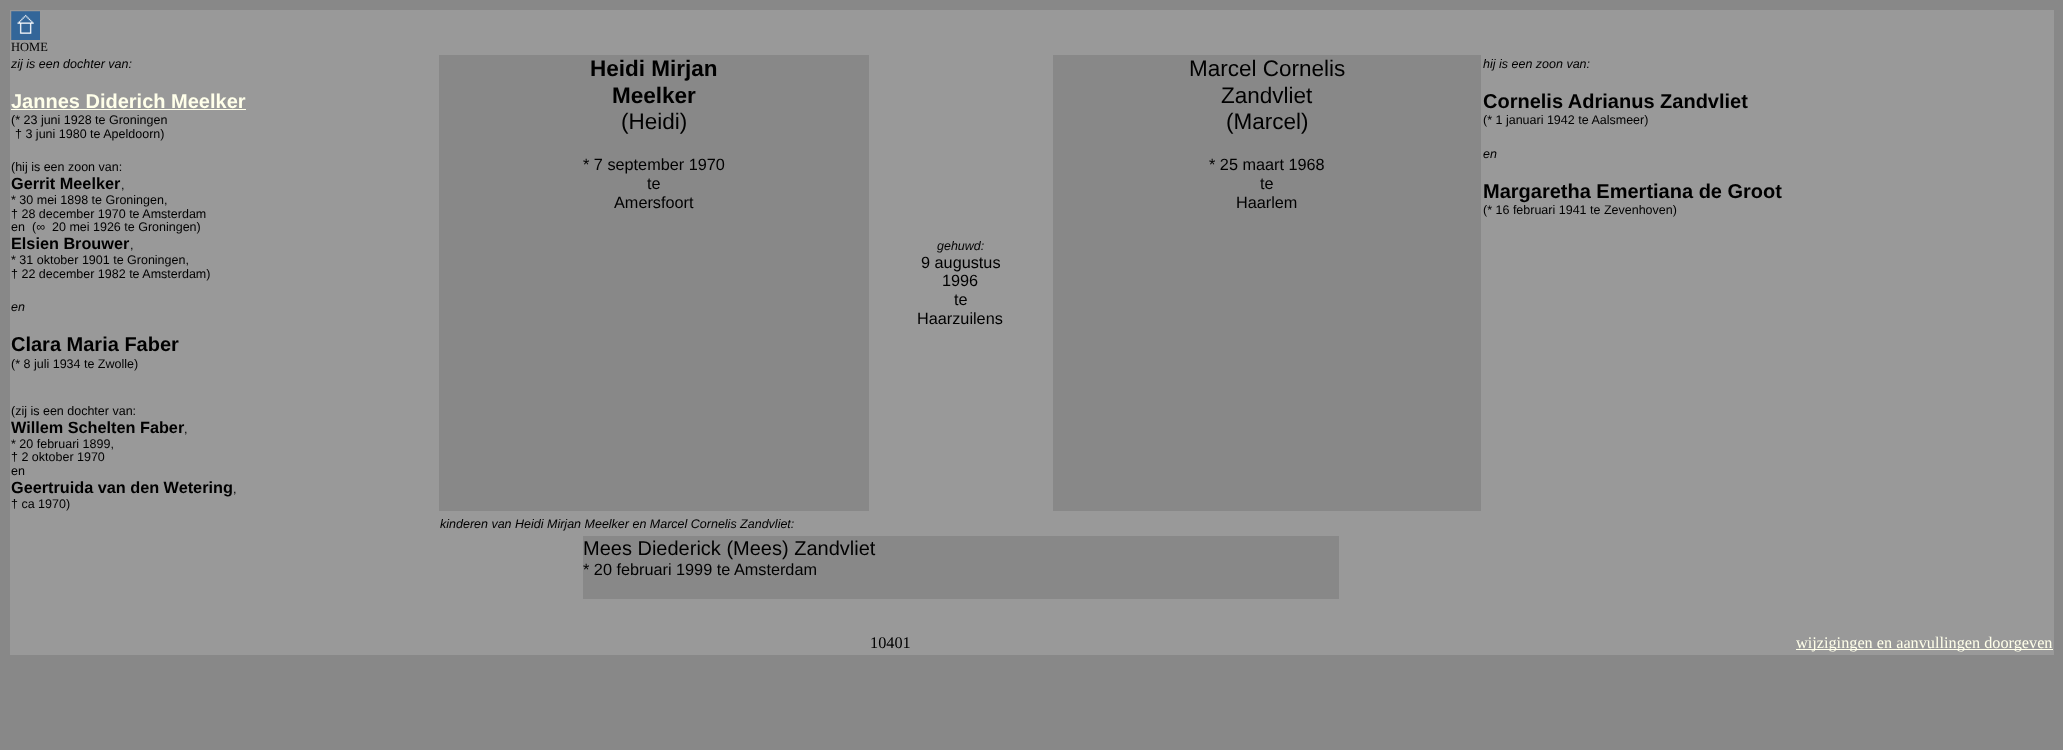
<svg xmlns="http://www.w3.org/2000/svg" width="2063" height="750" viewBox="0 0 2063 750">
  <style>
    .t1 { font: 12.5px Liberation Serif; fill: #000; }
    .t2 { font: italic 12.5px Liberation Sans; fill: #000; }
    .t3 { font: bold 20px Liberation Sans; fill: #ffffea; }
    .t4 { font: 12.5px Liberation Sans; fill: #000; }
    .t5 { font: bold 16.25px Liberation Sans; fill: #000; }
    .t6 { font: bold 20px Liberation Sans; fill: #000; }
    .t7 { font: bold 22.5px Liberation Sans; fill: #000; }
    .t8 { font: 22.5px Liberation Sans; fill: #000; }
    .t9 { font: 16.25px Liberation Sans; fill: #000; }
    .t10 { font: 20px Liberation Sans; fill: #000; }
    .t11 { font: 16.25px Liberation Serif; fill: #000; }
    .t12 { font: 16.25px Liberation Serif; fill: #ffffea; }
  </style>
  <rect width="100%" height="100%" fill="#888"/>
  <rect x="10" y="10" width="2044" height="645" fill="#999"/>
  <image x="11" y="11" width="29" height="29" href="images/1.png"/>
  <text x="11" y="51" class="t1">HOME</text>
  <text x="11" y="68" class="t2">zij is een dochter van:</text>
  <text x="11" y="108" class="t3">Jannes Diderich Meelker</text>
  <rect x="11" y="109" width="235" height="1" fill="#ffffea"/>
  <text x="11" y="124" class="t4">(* 23 juni 1928 te Groningen</text>
  <text x="15" y="138" class="t4">† 3 juni 1980 te Apeldoorn)</text>
  <text x="11" y="171" class="t4">(hij is een zoon van:</text>
  <text x="11" y="189" class="t5">Gerrit Meelker</text>
  <text x="121" y="189" class="t4">,</text>
  <text x="11" y="204" class="t4">* 30 mei 1898 te Groningen,</text>
  <text x="11" y="218" class="t4">† 28 december 1970 te Amsterdam</text>
  <text x="11" y="231" class="t4">en</text>
  <text x="32" y="231" class="t4" xml:space="preserve">(∞  20 mei 1926 te Groningen)</text>
  <text x="11" y="249" class="t5">Elsien Brouwer</text>
  <text x="130" y="249" class="t4">,</text>
  <text x="11" y="264" class="t4">* 31 oktober 1901 te Groningen,</text>
  <text x="11" y="278" class="t4">† 22 december 1982 te Amsterdam)</text>
  <text x="11" y="311" class="t2">en</text>
  <text x="11" y="351" class="t6">Clara Maria Faber</text>
  <text x="11" y="368" class="t4">(* 8 juli 1934 te Zwolle)</text>
  <text x="11" y="415" class="t4">(zij is een dochter van:</text>
  <text x="11" y="433" class="t5">Willem Schelten Faber</text>
  <text x="184" y="433" class="t4">,</text>
  <text x="11" y="448" class="t4">* 20 februari 1899,</text>
  <text x="11" y="461" class="t4">† 2 oktober 1970</text>
  <text x="11" y="475" class="t4">en</text>
  <text x="11" y="493" class="t5">Geertruida van den Wetering</text>
  <text x="233" y="493" class="t4">,</text>
  <text x="11" y="508" class="t4">† ca 1970)</text>
  <rect x="439" y="55" width="430" height="456" fill="#888"/>
  <text x="590" y="76" class="t7">Heidi Mirjan</text>
  <text x="612" y="103" class="t7">Meelker</text>
  <text x="621" y="129" class="t8">(Heidi)</text>
  <text x="583" y="170" class="t9">* 7 september 1970</text>
  <text x="647" y="189" class="t9">te</text>
  <text x="614" y="208" class="t9">Amersfoort</text>
  <rect x="1053" y="55" width="428" height="456" fill="#888"/>
  <text x="1189" y="76" class="t8">Marcel Cornelis</text>
  <text x="1221" y="103" class="t8">Zandvliet</text>
  <text x="1226" y="129" class="t8">(Marcel)</text>
  <text x="1209" y="170" class="t9">* 25 maart 1968</text>
  <text x="1260" y="189" class="t9">te</text>
  <text x="1236" y="208" class="t9">Haarlem</text>
  <text x="1483" y="68" class="t2">hij is een zoon van:</text>
  <text x="1483" y="108" class="t6">Cornelis Adrianus Zandvliet</text>
  <text x="1483" y="124" class="t4">(* 1 januari 1942 te Aalsmeer)</text>
  <text x="1483" y="158" class="t2">en</text>
  <text x="1483" y="198" class="t6">Margaretha Emertiana de Groot</text>
  <text x="1483" y="214" class="t4">(* 16 februari 1941 te Zevenhoven)</text>
  <text x="937" y="250" class="t2">gehuwd:</text>
  <text x="921" y="268" class="t9">9 augustus</text>
  <text x="942" y="286" class="t9">1996</text>
  <text x="954" y="305" class="t9">te</text>
  <text x="917" y="324" class="t9">Haarzuilens</text>
  <text x="440" y="528" class="t2">kinderen van Heidi Mirjan Meelker en Marcel Cornelis Zandvliet:</text>
  <rect x="583" y="536" width="756" height="63" fill="#888"/>
  <text x="583" y="555" class="t10">Mees Diederick (Mees) Zandvliet</text>
  <text x="583" y="575" class="t9">* 20 februari 1999 te Amsterdam</text>
  <text x="870" y="648" class="t11">10401</text>
  <rect x="1796" y="649" width="257" height="1" fill="#ffffea"/>
  <text x="1796" y="648" class="t12">wijzigingen en aanvullingen doorgeven</text>
</svg>
